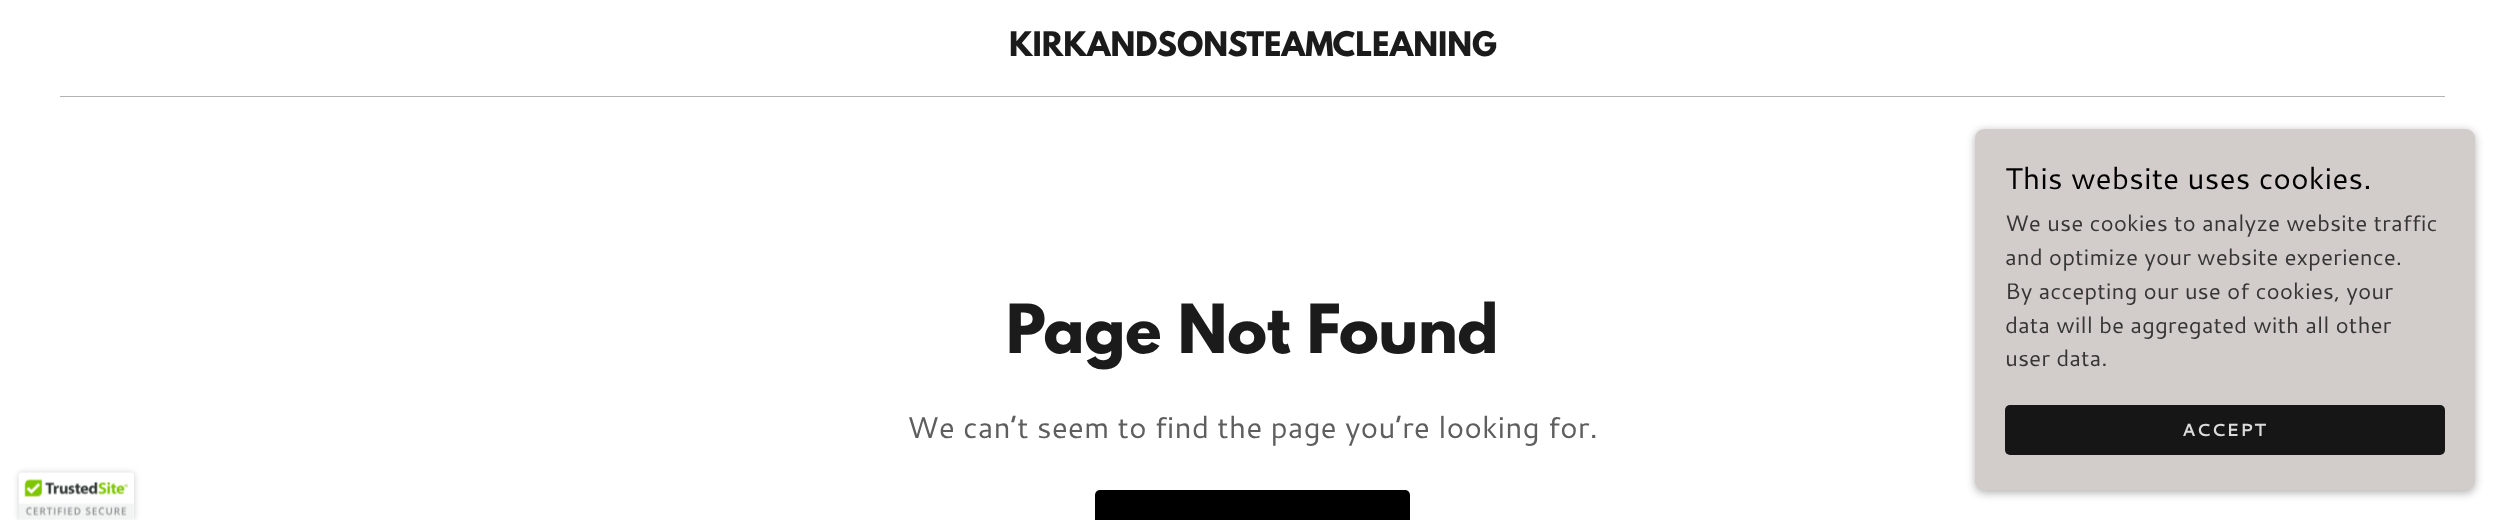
<svg xmlns="http://www.w3.org/2000/svg" width="2504" height="520" viewBox="0 0 2504 520">
  <style>
    .t1 { font: bold 30px League Spartan; fill: #1b1b1b; }
    .t2 { font: bold 60px League Spartan; fill: #1b1b1b; }
    .t3 { font: 30px Cantarell; fill: #5e5e5e; }
    .t4 { font: 30px Cantarell; fill: #000; }
    .t5 { font: 22.5px Cantarell; fill: #373636; }
    .t6 { font: bold 17.5px Cantarell; letter-spacing: 1.25px; fill: #dbdbdb; }
  </style>
  <rect width="100%" height="100%" fill="#fff"/>
  <text x="1009" y="56" class="t1">KIRKANDSONSTEAMCLEANING</text>
  <rect x="60" y="96" width="2385" height="1" fill="#b3b3b3"/>
  <text x="1006" y="353" class="t2">Page Not Found</text>
  <text x="907" y="438" class="t3">We can’t seem to find the page you’re looking for.</text>
  <rect x="1095" y="490" width="315" height="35" rx="5" fill="#000"/>
  <rect x="1975" y="131" width="500" height="362" rx="9" fill="#0000004d" filter="blur(4px)"/>
  <rect x="1975" y="129" width="500" height="361" rx="9" fill="#d2cdca"/>
  <text x="2005" y="189" class="t4">This website uses cookies.</text>
  <text x="2005" y="231" class="t5">We use cookies to analyze website traffic</text>
  <text x="2005" y="265" class="t5">and optimize your website experience.</text>
  <text x="2005" y="299" class="t5">By accepting our use of cookies, your</text>
  <text x="2005" y="333" class="t5">data will be aggregated with all other</text>
  <text x="2005" y="366" class="t5">user data.</text>
  <rect x="2005" y="405" width="440" height="50" rx="5" fill="#161616"/>
  <text x="2182" y="436" class="t6">ACCEPT</text>
  <rect x="19" y="473" width="115" height="47" rx="2.5" fill="#00000033" filter="blur(3px)"/>
  <path d="M21.5 473H131.5C133 473 134 474 134 475.5V520H19V475.5C19 474 20 473 21.5 473Z" fill="#fff"/>
  <image x="18" y="472" width="116" height="48" href="images/1.png"/>
</svg>
